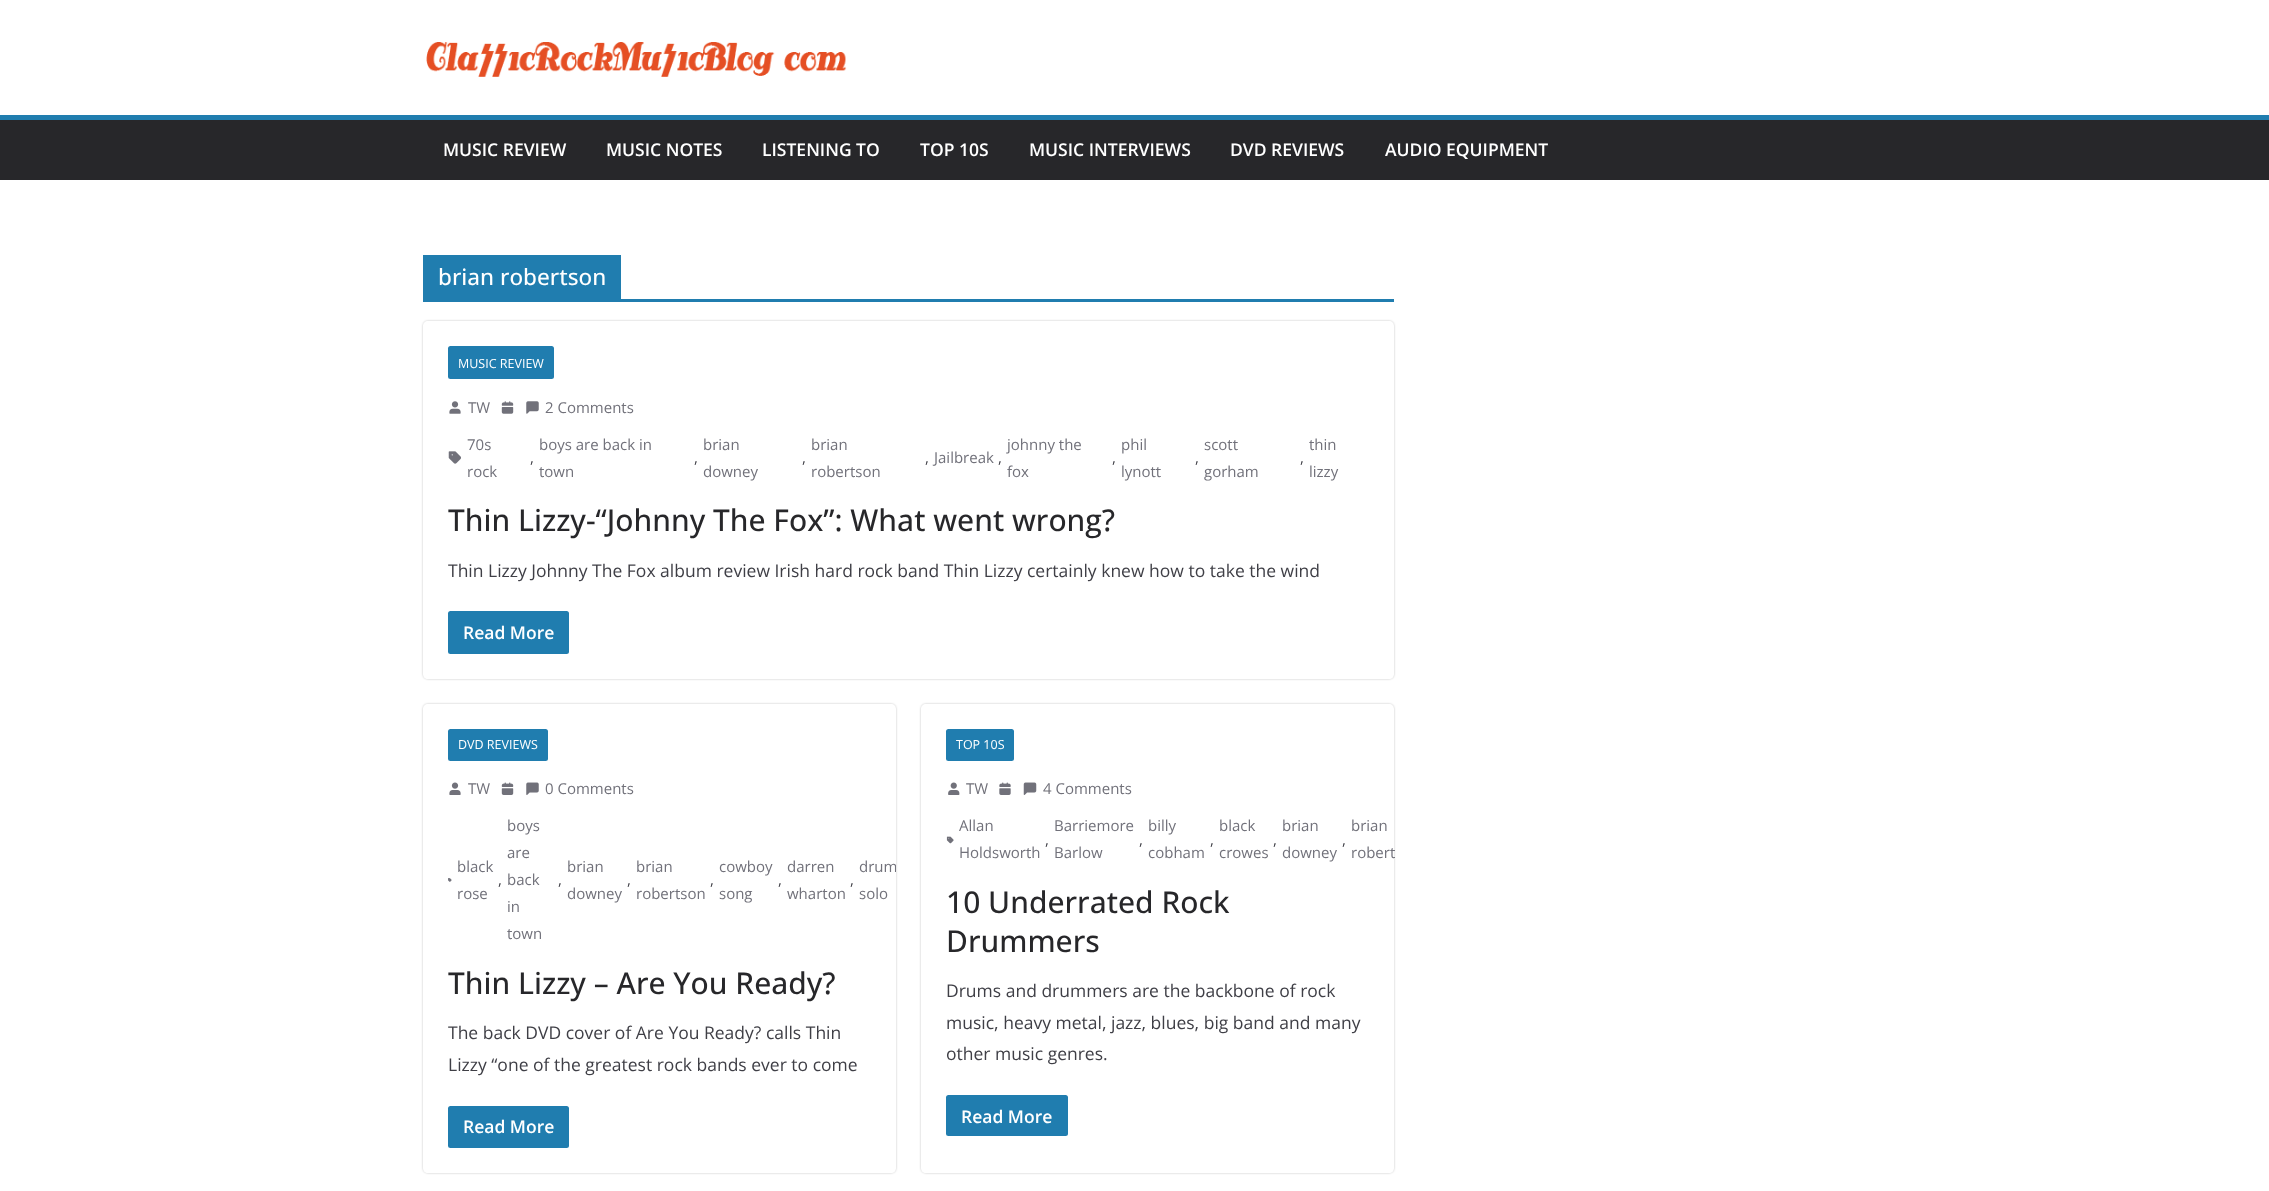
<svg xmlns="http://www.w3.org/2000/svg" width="2269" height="1191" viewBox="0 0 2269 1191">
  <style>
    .t1 { font: 600 17.5px Open Sans; fill: #fff; }
    .t2 { font: 500 22.5px Open Sans; fill: #fff; }
    .t3 { font: 12.5px Open Sans; fill: #fff; }
    .t4 { font: 15px Open Sans; fill: #71717a; }
    .t5 { font: 15px Open Sans; fill: #3f3f46; }
    .t6 { font: 500 30px Open Sans; fill: #27272a; }
    .t7 { font: 17.5px Open Sans; fill: #3f3f46; }
  </style>
  <defs>
    <clipPath id="clip1"><path d="M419 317H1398V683H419ZM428 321H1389C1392 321 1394 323 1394 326V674C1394 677 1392 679 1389 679H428C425 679 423 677 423 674V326C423 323 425 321 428 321Z" clip-rule="evenodd"/></clipPath>
    <clipPath id="clip2"><path d="M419 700H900V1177H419ZM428 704H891C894 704 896 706 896 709V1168C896 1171 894 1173 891 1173H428C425 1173 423 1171 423 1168V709C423 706 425 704 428 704Z" clip-rule="evenodd"/></clipPath>
    <clipPath id="clip3"><rect x="423" y="704" width="473" height="469" rx="5"/></clipPath>
    <clipPath id="clip4"><path d="M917 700H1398V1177H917ZM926 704H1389C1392 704 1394 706 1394 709V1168C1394 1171 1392 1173 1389 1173H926C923 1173 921 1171 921 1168V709C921 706 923 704 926 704Z" clip-rule="evenodd"/></clipPath>
  </defs>
  <rect width="100%" height="100%" fill="#fff"/>
  <image x="426" y="42" width="421" height="35" href="images/1.png"/>
  <rect x="0" y="120" width="2269" height="60" fill="#27272a"/>
  <rect x="0" y="115" width="2269" height="5" fill="#207daf"/>
  <text x="443" y="156" class="t1">MUSIC REVIEW</text>
  <text x="606" y="156" class="t1">MUSIC NOTES</text>
  <text x="762" y="156" class="t1">LISTENING TO</text>
  <text x="920" y="156" class="t1">TOP 10S</text>
  <text x="1029" y="156" class="t1">MUSIC INTERVIEWS</text>
  <text x="1230" y="156" class="t1">DVD REVIEWS</text>
  <text x="1385" y="156" class="t1">AUDIO EQUIPMENT</text>
  <rect x="423" y="299" width="971" height="3" fill="#207daf"/>
  <rect x="423" y="255" width="198" height="44" fill="#207daf"/>
  <text x="438" y="285" class="t2">brian robertson</text>
  <g clip-path="url(#clip1)">
    <rect x="423" y="321" width="971" height="358" rx="5" fill="#0000003d" filter="blur(1px)"/>
  </g>
  <rect x="448" y="346" width="106" height="33" rx="2.5" fill="#207daf"/>
  <text x="458" y="368" class="t3">MUSIC REVIEW</text>
  <image x="449" y="401" width="12" height="13" href="images/2.png"/>
  <text x="468" y="413" class="t4">TW</text>
  <image x="501" y="401" width="13" height="13" href="images/3.png"/>
  <image x="526" y="401" width="13" height="13" href="images/4.png"/>
  <text x="545" y="413" class="t4">2 Comments</text>
  <image x="448" y="451" width="13" height="13" href="images/5.png"/>
  <text x="467" y="450" class="t4">70s</text>
  <text x="467" y="477" class="t4">rock</text>
  <text x="530" y="463" class="t5">,</text>
  <text x="539" y="450" class="t4">boys are back in</text>
  <text x="539" y="477" class="t4">town</text>
  <text x="694" y="463" class="t5">,</text>
  <text x="703" y="450" class="t4">brian</text>
  <text x="703" y="477" class="t4">downey</text>
  <text x="802" y="463" class="t5">,</text>
  <text x="811" y="450" class="t4">brian</text>
  <text x="811" y="477" class="t4">robertson</text>
  <text x="925" y="463" class="t5">,</text>
  <text x="934" y="463" class="t4">Jailbreak</text>
  <text x="998" y="463" class="t5">,</text>
  <text x="1007" y="450" class="t4">johnny the</text>
  <text x="1007" y="477" class="t4">fox</text>
  <text x="1112" y="463" class="t5">,</text>
  <text x="1121" y="450" class="t4">phil</text>
  <text x="1121" y="477" class="t4">lynott</text>
  <text x="1195" y="463" class="t5">,</text>
  <text x="1204" y="450" class="t4">scott</text>
  <text x="1204" y="477" class="t4">gorham</text>
  <text x="1300" y="463" class="t5">,</text>
  <text x="1309" y="450" class="t4">thin</text>
  <text x="1309" y="477" class="t4">lizzy</text>
  <text x="448" y="531" class="t6">Thin Lizzy-“Johnny The Fox”: What went wrong?</text>
  <text x="448" y="577" class="t7">Thin Lizzy Johnny The Fox album review Irish hard rock band Thin Lizzy certainly knew how to take the wind</text>
  <rect x="448" y="611" width="121" height="43" rx="2.5" fill="#207daf"/>
  <text x="463" y="639" class="t1">Read More</text>
  <g clip-path="url(#clip2)">
    <rect x="423" y="704" width="473" height="469" rx="5" fill="#0000003d" filter="blur(1px)"/>
  </g>
  <rect x="448" y="729" width="100" height="32" rx="2.5" fill="#207daf"/>
  <text x="458" y="749" class="t3">DVD REVIEWS</text>
  <image x="449" y="782" width="12" height="13" href="images/6.png"/>
  <text x="468" y="794" class="t4">TW</text>
  <image x="501" y="782" width="13" height="13" href="images/7.png"/>
  <image x="526" y="782" width="13" height="13" href="images/8.png"/>
  <text x="545" y="794" class="t4">0 Comments</text>
  <image x="448" y="878" width="4" height="4" href="images/9.png"/>
  <text x="457" y="872" class="t4">black</text>
  <text x="457" y="899" class="t4">rose</text>
  <text x="507" y="831" class="t4">boys</text>
  <text x="507" y="858" class="t4">are</text>
  <text x="507" y="885" class="t4">back</text>
  <text x="507" y="912" class="t4">in</text>
  <text x="507" y="939" class="t4">town</text>
  <text x="567" y="872" class="t4">brian</text>
  <text x="567" y="899" class="t4">downey</text>
  <text x="636" y="872" class="t4">brian</text>
  <text x="636" y="899" class="t4">robertson</text>
  <text x="719" y="872" class="t4">cowboy</text>
  <text x="719" y="899" class="t4">song</text>
  <text x="787" y="872" class="t4">darren</text>
  <text x="787" y="899" class="t4">wharton</text>
  <g clip-path="url(#clip3)">
    <text x="859" y="872" class="t4">drum</text>
  </g>
  <text x="859" y="899" class="t4">solo</text>
  <text x="498" y="885" class="t5">,</text>
  <text x="558" y="885" class="t5">,</text>
  <text x="627" y="885" class="t5">,</text>
  <text x="710" y="885" class="t5">,</text>
  <text x="778" y="885" class="t5">,</text>
  <text x="850" y="885" class="t5">,</text>
  <text x="448" y="994" class="t6">Thin Lizzy – Are You Ready?</text>
  <text x="448" y="1039" class="t7">The back DVD cover of Are You Ready? calls Thin</text>
  <text x="448" y="1071" class="t7">Lizzy “one of the greatest rock bands ever to come</text>
  <rect x="448" y="1106" width="121" height="42" rx="2.5" fill="#207daf"/>
  <text x="463" y="1133" class="t1">Read More</text>
  <g clip-path="url(#clip4)">
    <rect x="921" y="704" width="473" height="469" rx="5" fill="#0000003d" filter="blur(1px)"/>
  </g>
  <rect x="946" y="729" width="68" height="32" rx="2.5" fill="#207daf"/>
  <text x="956" y="749" class="t3">TOP 10S</text>
  <image x="948" y="782" width="12" height="13" href="images/10.png"/>
  <text x="966" y="794" class="t4">TW</text>
  <image x="999" y="782" width="12" height="13" href="images/11.png"/>
  <image x="1023" y="782" width="14" height="13" href="images/12.png"/>
  <text x="1043" y="794" class="t4">4 Comments</text>
  <image x="946" y="836" width="8" height="8" href="images/13.png"/>
  <text x="959" y="831" class="t4">Allan</text>
  <text x="959" y="858" class="t4">Holdsworth</text>
  <text x="1054" y="831" class="t4">Barriemore</text>
  <text x="1054" y="858" class="t4">Barlow</text>
  <text x="1148" y="831" class="t4">billy</text>
  <text x="1148" y="858" class="t4">cobham</text>
  <text x="1219" y="831" class="t4">black</text>
  <text x="1219" y="858" class="t4">crowes</text>
  <text x="1282" y="831" class="t4">brian</text>
  <text x="1282" y="858" class="t4">downey</text>
  <text x="1351" y="831" class="t4">brian</text>
  <text x="1351" y="858" class="t4">robert</text>
  <text x="1045" y="845" class="t5">,</text>
  <text x="1139" y="845" class="t5">,</text>
  <text x="1210" y="845" class="t5">,</text>
  <text x="1273" y="845" class="t5">,</text>
  <text x="1342" y="845" class="t5">,</text>
  <text x="946" y="913" class="t6">10 Underrated Rock</text>
  <text x="946" y="952" class="t6">Drummers</text>
  <text x="946" y="997" class="t7">Drums and drummers are the backbone of rock</text>
  <text x="946" y="1029" class="t7">music, heavy metal, jazz, blues, big band and many</text>
  <text x="946" y="1060" class="t7">other music genres.</text>
  <rect x="946" y="1095" width="122" height="41" rx="2.5" fill="#207daf"/>
  <text x="961" y="1123" class="t1">Read More</text>
</svg>
